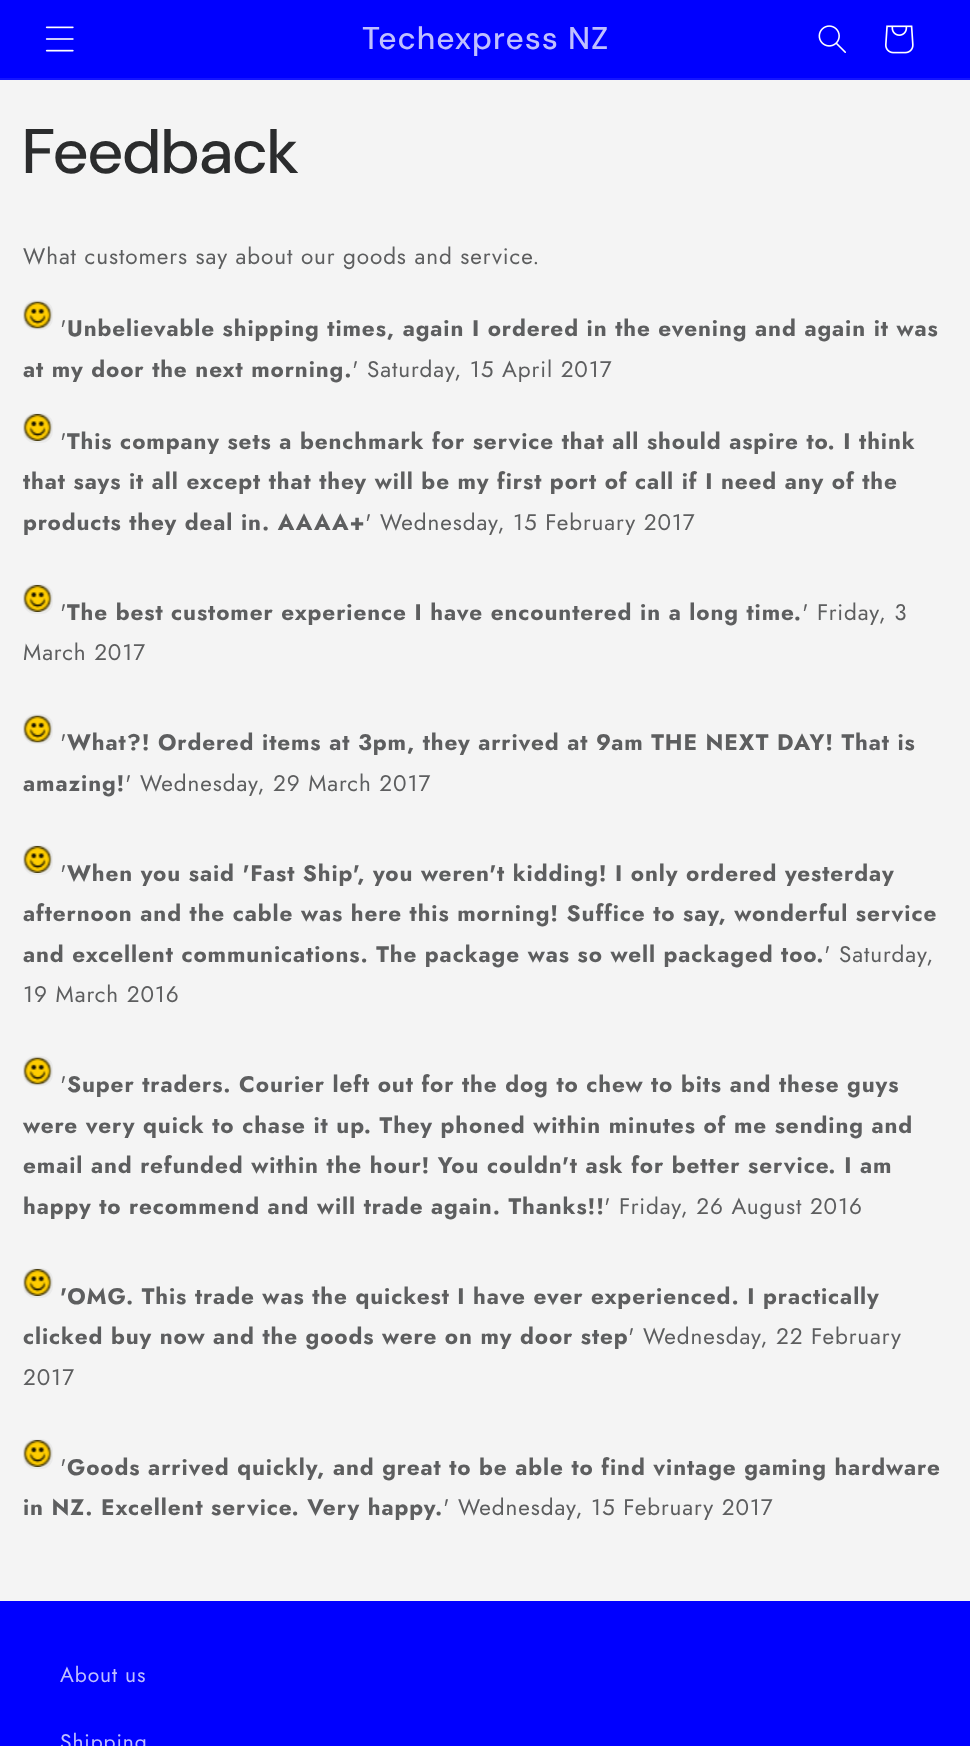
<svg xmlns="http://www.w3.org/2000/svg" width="970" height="1746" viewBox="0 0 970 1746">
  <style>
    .t1 { font: 500 31.5px 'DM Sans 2'; letter-spacing: 1px; fill: #bfbfff; }
    .t2 { font: 500 63px DM Sans; letter-spacing: 1px; fill: #2b2c2d; }
    .t3 { font: 22.5px Jost; letter-spacing: 0.9px; fill: #5d5e5f; }
    .t4 { font: bold 22.5px Jost; letter-spacing: 0.9px; fill: #5d5e5f; }
    .t5 { font: 21px Jost; letter-spacing: 0.9px; fill: #bfbfff; }
  </style>
  <rect width="100%" height="100%" fill="#f4f4f4"/>
  <rect x="0" y="0" width="970" height="78" fill="#00f"/>
  <rect x="0" y="78" width="970" height="2" fill="#1414ff"/>
  <image x="45" y="26" width="29" height="26" href="images/1.png"/>
  <text x="362" y="49" class="t1">Techexpress NZ</text>
  <image x="818" y="25" width="28" height="28" href="images/2.png"/>
  <image x="885" y="25" width="29" height="29" href="images/3.png"/>
  <text x="23" y="173" class="t2">Feedback</text>
  <text x="23" y="264" class="t3">What customers say about our goods and service.</text>
  <rect x="24" y="301" width="28" height="28" rx="11" fill="none" stroke="#eaeaea" stroke-width="2"/>
  <image x="23" y="301" width="29" height="28" href="images/4.png"/>
  <text x="60" y="336" class="t3">'</text>
  <text x="67" y="336" class="t4">Unbelievable shipping times, again I ordered in the evening and again it was</text>
  <text x="23" y="377" class="t4">at my door the next morning.</text>
  <text x="352" y="377" class="t3">' Saturday, 15 April 2017</text>
  <rect x="24" y="414" width="28" height="28" rx="11" fill="none" stroke="#eaeaea" stroke-width="2"/>
  <image x="23" y="414" width="29" height="27" href="images/5.png"/>
  <text x="60" y="449" class="t3">'</text>
  <text x="67" y="449" class="t4">This company sets a benchmark for service that all should aspire to. I think</text>
  <text x="23" y="489" class="t4">that says it all except that they will be my first port of call if I need any of the</text>
  <text x="23" y="530" class="t4">products they deal in. AAAA+</text>
  <text x="365" y="530" class="t3">' Wednesday, 15 February 2017</text>
  <rect x="24" y="585" width="28" height="28" rx="11" fill="none" stroke="#eaeaea" stroke-width="2"/>
  <image x="23" y="585" width="29" height="27" href="images/5.png"/>
  <text x="60" y="620" class="t3">'</text>
  <text x="67" y="620" class="t4">The best customer experience I have encountered in a long time.</text>
  <text x="802" y="620" class="t3">' Friday, 3</text>
  <text x="23" y="660" class="t3">March 2017</text>
  <rect x="24" y="715" width="28" height="28" rx="11" fill="none" stroke="#eaeaea" stroke-width="2"/>
  <image x="23" y="715" width="29" height="28" href="images/4.png"/>
  <text x="60" y="750" class="t3">'</text>
  <text x="67" y="750" class="t4">What?! Ordered items at 3pm, they arrived at 9am THE NEXT DAY! That is</text>
  <text x="23" y="791" class="t4">amazing!</text>
  <text x="125" y="791" class="t3">' Wednesday, 29 March 2017</text>
  <rect x="24" y="846" width="28" height="28" rx="11" fill="none" stroke="#eaeaea" stroke-width="2"/>
  <image x="23" y="846" width="29" height="27" href="images/5.png"/>
  <text x="60" y="881" class="t3">'</text>
  <text x="67" y="881" class="t4">When you said 'Fast Ship', you weren't kidding! I only ordered yesterday</text>
  <text x="23" y="921" class="t4">afternoon and the cable was here this morning! Suffice to say, wonderful service</text>
  <text x="23" y="962" class="t4">and excellent communications. The package was so well packaged too.</text>
  <text x="824" y="962" class="t3">' Saturday,</text>
  <text x="23" y="1002" class="t3">19 March 2016</text>
  <rect x="24" y="1057" width="28" height="28" rx="11" fill="none" stroke="#eaeaea" stroke-width="2"/>
  <image x="23" y="1057" width="29" height="28" href="images/4.png"/>
  <text x="60" y="1092" class="t3">'</text>
  <text x="67" y="1092" class="t4">Super traders. Courier left out for the dog to chew to bits and these guys</text>
  <text x="23" y="1133" class="t4">were very quick to chase it up. They phoned within minutes of me sending and</text>
  <text x="23" y="1173" class="t4">email and refunded within the hour! You couldn't ask for better service. I am</text>
  <text x="23" y="1214" class="t4">happy to recommend and will trade again. Thanks!!</text>
  <text x="604" y="1214" class="t3">' Friday, 26 August 2016</text>
  <rect x="24" y="1269" width="28" height="28" rx="11" fill="none" stroke="#eaeaea" stroke-width="2"/>
  <image x="23" y="1269" width="29" height="27" href="images/5.png"/>
  <text x="60" y="1304" class="t4">'OMG. This trade was the quickest I have ever experienced. I practically</text>
  <text x="23" y="1344" class="t4">clicked buy now and the goods were on my door step</text>
  <text x="628" y="1344" class="t3">' Wednesday, 22 February</text>
  <text x="23" y="1385" class="t3">2017</text>
  <rect x="24" y="1440" width="28" height="28" rx="11" fill="none" stroke="#eaeaea" stroke-width="2"/>
  <image x="23" y="1440" width="29" height="27" href="images/5.png"/>
  <text x="60" y="1475" class="t3">'</text>
  <text x="67" y="1475" class="t4">Goods arrived quickly, and great to be able to find vintage gaming hardware</text>
  <text x="23" y="1515" class="t4">in NZ. Excellent service. Very happy.</text>
  <text x="443" y="1515" class="t3">' Wednesday, 15 February 2017</text>
  <rect x="0" y="1601" width="970" height="145" fill="#00f"/>
  <text x="60" y="1682" class="t5">About us</text>
  <text x="60" y="1749" class="t5">Shipping</text>
</svg>
